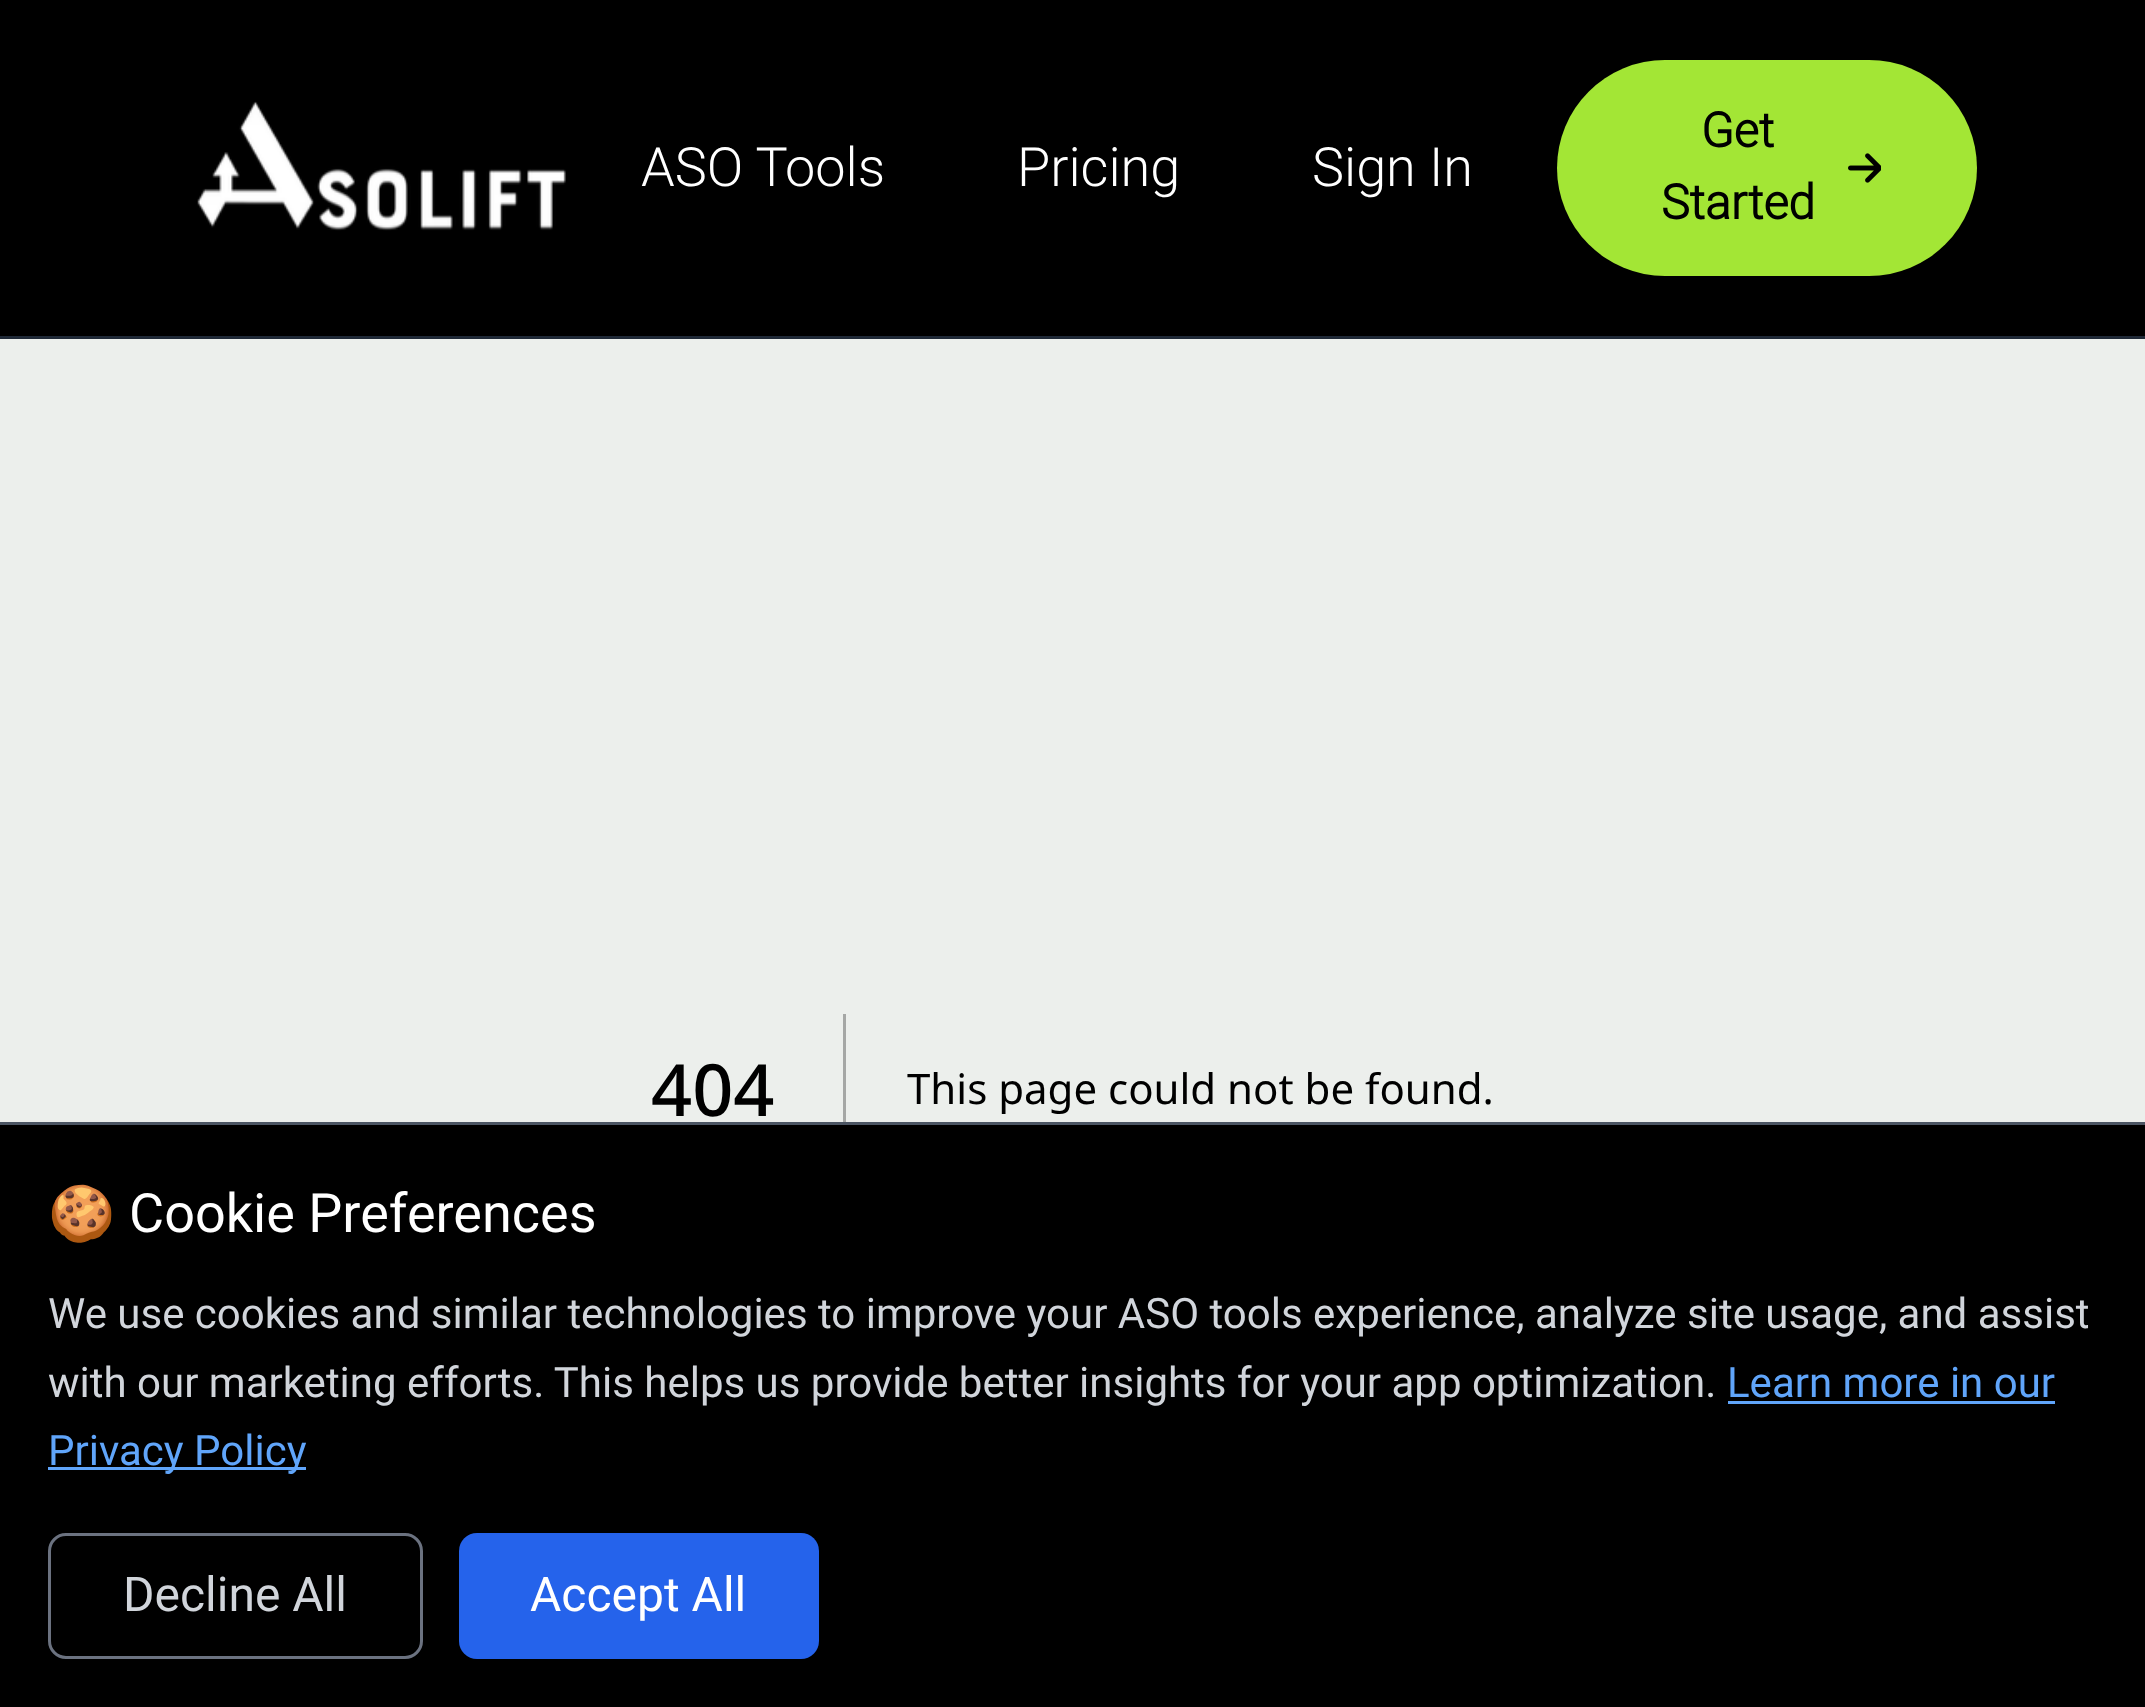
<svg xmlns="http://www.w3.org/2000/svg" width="2145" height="1707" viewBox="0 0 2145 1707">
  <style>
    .t1 { font: 300 54px Roboto; fill: #fff; }
    .t2 { font: bold 48px Roboto; fill: #000; }
    .t3 { font: 500 72px Noto Sans; fill: #000; }
    .t4 { font: 42px Noto Sans; fill: #000; }
    .t5 { font: 54px Noto Color Emoji; fill: #fff; }
    .t6 { font: 54px Roboto; fill: #fff; }
    .t7 { font: 42px Roboto; fill: #d1d5db; }
    .t8 { font: 42px Roboto; fill: #60a5fa; }
    .t9 { font: 48px Roboto; fill: #d1d5db; }
    .t10 { font: 48px Roboto; fill: #fff; }
  </style>
  <rect width="100%" height="100%" fill="#ecefec"/>
  <rect x="0" y="0" width="2145" height="336" fill="#000"/>
  <rect x="0" y="336" width="2145" height="3" fill="#1f2937"/>
  <image x="197" y="101" width="369" height="130" href="images/1.png"/>
  <text x="641" y="186" class="t1">ASO Tools</text>
  <text x="1017" y="186" class="t1">Pricing</text>
  <text x="1312" y="186" class="t1">Sign In</text>
  <rect x="1557" y="60" width="420" height="216" rx="108" fill="#a3e635"/>
  <text x="1701" y="147" class="t2">Get</text>
  <image x="1848" y="153" width="33" height="30" href="images/2.png"/>
  <text x="1661" y="219" class="t2">Started</text>
  <rect x="843" y="1014" width="3" height="108" fill="#a5a7a5"/>
  <text x="651" y="1116" class="t3">404</text>
  <text x="907" y="1104" class="t4">This page could not be found.</text>
  <rect x="0" y="1125" width="2145" height="582" fill="#000"/>
  <rect x="0" y="1122" width="2145" height="3" fill="#4b5563"/>
  <text x="48" y="1232" class="t5">🍪</text>
  <text x="129" y="1232" class="t6">Cookie Preferences</text>
  <text x="48" y="1328" class="t7">We use cookies and similar technologies to improve your ASO tools experience, analyze site usage, and assist</text>
  <text x="48" y="1397" class="t7">with our marketing efforts. This helps us provide better insights for your app optimization.</text>
  <text x="1727" y="1397" class="t8">Learn more in our</text>
  <rect x="1728" y="1401" width="327" height="3" fill="#60a5fa"/>
  <rect x="48" y="1467" width="258" height="3" fill="#60a5fa"/>
  <text x="48" y="1465" class="t8">Privacy Policy</text>
  <rect x="49.5" y="1534.5" width="372" height="123" rx="16.5" fill="none" stroke="#6b7280" stroke-width="3"/>
  <text x="123" y="1611" class="t9">Decline All</text>
  <rect x="459" y="1533" width="360" height="126" rx="18" fill="#2563eb"/>
  <text x="530" y="1611" class="t10">Accept All</text>
</svg>
